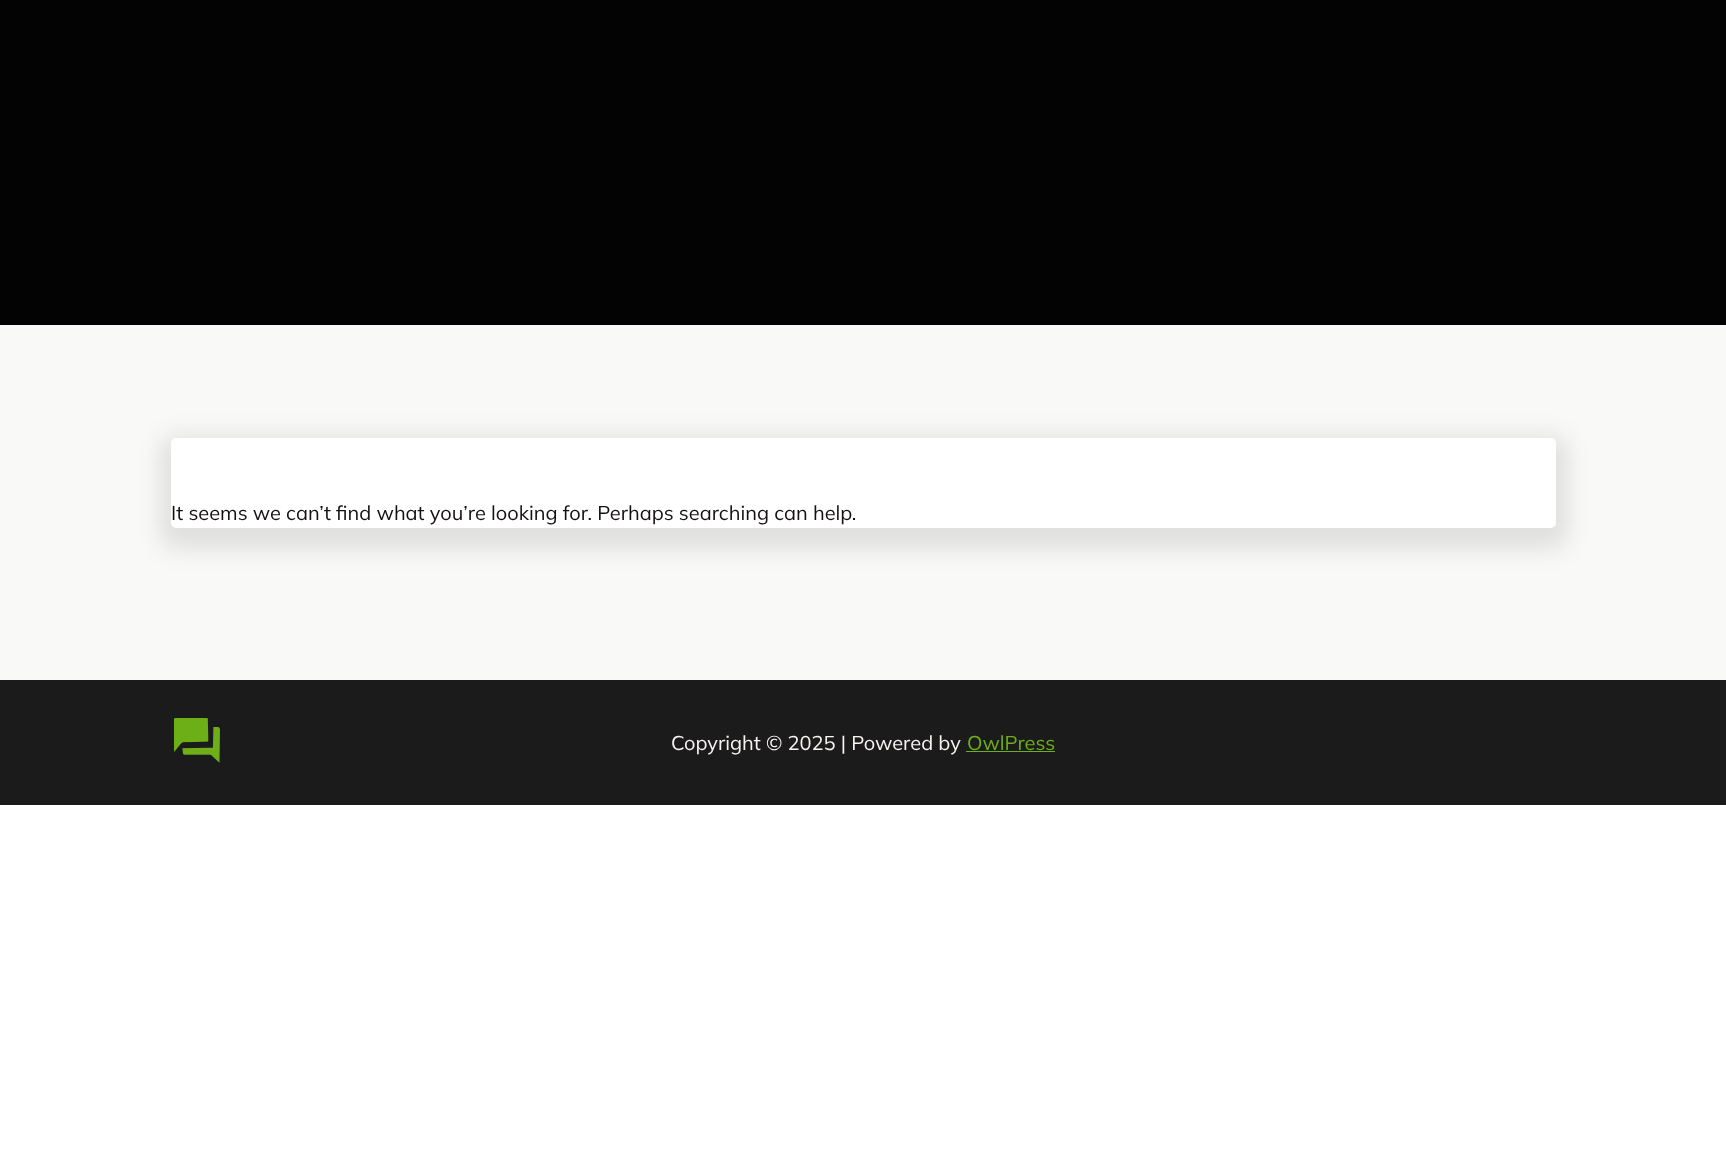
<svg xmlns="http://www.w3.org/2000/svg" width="1726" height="1170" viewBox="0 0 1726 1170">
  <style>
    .t1 { font: 20px Mulish; fill: #151111; }
    .t2 { font: 20px Mulish; fill: #f9f3f2; }
    .t3 { font: 20px Mulish; fill: #6caf17; }
  </style>
  <rect width="100%" height="100%" fill="#fff"/>
  <rect x="0" y="0" width="1726" height="325" fill="#040303"/>
  <rect x="0" y="325" width="1726" height="355" fill="#f9faf7"/>
  <rect x="160" y="436" width="1408" height="113" rx="16" fill="#0000001a" filter="blur(12.5px)"/>
  <rect x="171" y="438" width="1385" height="90" rx="5" fill="#fff"/>
  <text x="171" y="520" class="t1">It seems we can’t find what you’re looking for. Perhaps searching can help.</text>
  <rect x="0" y="680" width="1726" height="125" fill="#1b1b1b"/>
  <image x="174" y="718" width="46" height="45" href="images/1.png"/>
  <text x="671" y="750" class="t2">Copyright © 2025 | Powered by</text>
  <text x="967" y="750" class="t3">OwlPress</text>
  <rect x="966" y="751" width="89" height="1" fill="#6caf17"/>
</svg>
